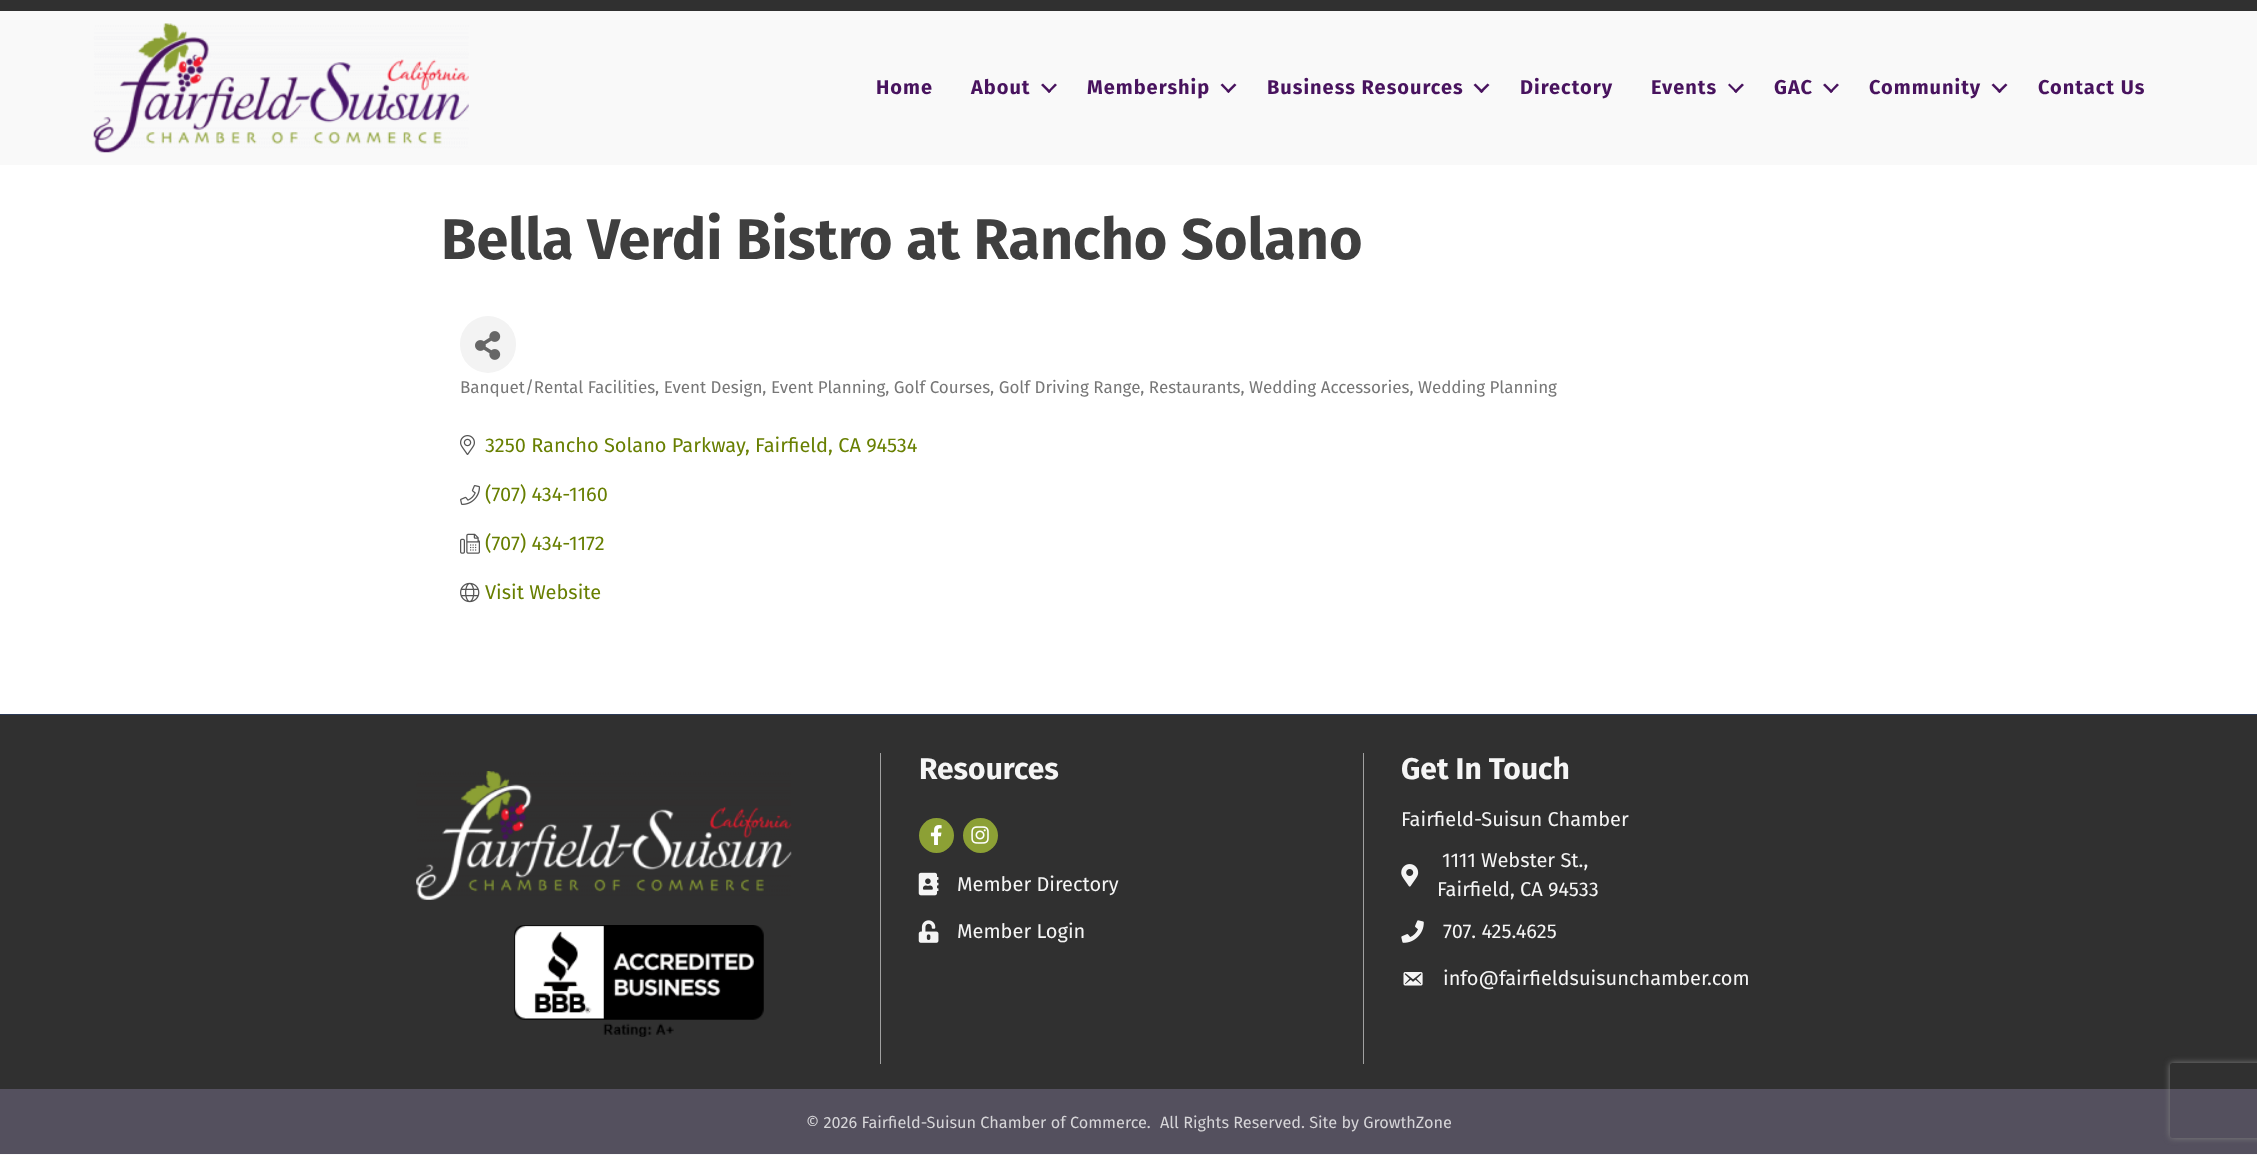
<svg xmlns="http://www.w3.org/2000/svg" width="2257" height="1155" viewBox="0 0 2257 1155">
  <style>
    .t1 { font: bold 20px Fira Sans; letter-spacing: 1px; fill: #48135e; }
    .t2 { font: bold 57.5px Fira Sans; fill: #3f3f3f; }
    .t3 { font: 17px Fira Sans; fill: #777; }
    .t4 { font: 20px Fira Sans; fill: #687f01; }
    .t5 { font: bold 30px Fira Sans; fill: #f5f5f5; }
    .t6 { font: 20px Fira Sans; fill: #f5f5f5; }
    .t7 { font: 16.25px Fira Sans; fill: #d6d5d8; }
  </style>
  <defs>
    <clipPath id="clip1"><path d="M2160 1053H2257V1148H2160ZM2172.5 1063H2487.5C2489 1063 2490 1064 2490 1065.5V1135.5C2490 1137 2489 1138 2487.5 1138H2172.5C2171 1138 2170 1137 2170 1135.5V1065.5C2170 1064 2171 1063 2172.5 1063Z" clip-rule="evenodd"/></clipPath>
  </defs>
  <rect width="100%" height="100%" fill="#f9f9f9"/>
  <rect x="0" y="0" width="2257" height="11" fill="#303030"/>
  <image x="93" y="23" width="376" height="130" href="images/1.png"/>
  <text x="876" y="94" class="t1">Home</text>
  <text x="971" y="94" class="t1">About</text>
  <path d="M1055 83.5L1057 85L1049 93L1047.5 91.5Z" fill="#48135e"/>
  <path d="M1043 83.5L1051 91.5L1049 93L1041 85Z" fill="#48135e"/>
  <text x="1087" y="94" class="t1">Membership</text>
  <path d="M1234.5 83.5L1236.5 85L1228.5 93L1226.5 91.5Z" fill="#48135e"/>
  <path d="M1222.5 83.5L1230 91.5L1228.5 93L1220.5 85Z" fill="#48135e"/>
  <text x="1267" y="94" class="t1">Business Resources</text>
  <path d="M1487.5 83.5L1489.5 85L1481.5 93L1479.5 91.5Z" fill="#48135e"/>
  <path d="M1475.5 83.5L1483.5 91.5L1481.5 93L1473.5 85Z" fill="#48135e"/>
  <text x="1520" y="94" class="t1">Directory</text>
  <text x="1651" y="94" class="t1">Events</text>
  <path d="M1742 83.5L1744 85L1736 93L1734 91.5Z" fill="#48135e"/>
  <path d="M1729.5 83.5L1737.5 91.5L1736 93L1728 85Z" fill="#48135e"/>
  <text x="1774" y="94" class="t1">GAC</text>
  <path d="M1837 83.5L1839 85L1831 93L1829.5 91.5Z" fill="#48135e"/>
  <path d="M1825 83.5L1833 91.5L1831 93L1823 85Z" fill="#48135e"/>
  <text x="1869" y="94" class="t1">Community</text>
  <path d="M2005.5 83.5L2007.5 85L1999.5 93L1997.5 91.5Z" fill="#48135e"/>
  <path d="M1993.5 83.5L2001.5 91.5L1999.5 93L1991.5 85Z" fill="#48135e"/>
  <text x="2038" y="94" class="t1">Contact Us</text>
  <rect x="0" y="165" width="2257" height="549" fill="#fff"/>
  <text x="441" y="259" class="t2">Bella Verdi Bistro at Rancho Solano</text>
  <rect x="460" y="316" width="56" height="57" rx="28" fill="#f3f3f3"/>
  <image x="475" y="331" width="26" height="29" href="images/2.png"/>
  <text x="460" y="393" class="t3">Banquet/Rental Facilities, Event Design, Event Planning, Golf Courses, Golf Driving Range, Restaurants, Wedding Accessories, Wedding Planning</text>
  <image x="460" y="435" width="15" height="20" href="images/3.png"/>
  <text x="485" y="452" class="t4">3250 Rancho Solano Parkway</text>
  <text x="745" y="452" class="t4">, Fairfield, CA 94534</text>
  <image x="460" y="485" width="20" height="20" href="images/4.png"/>
  <text x="485" y="501" class="t4">(707) 434-1160</text>
  <image x="460" y="533" width="20" height="21" href="images/5.png"/>
  <text x="485" y="550" class="t4">(707) 434-1172</text>
  <image x="460" y="582" width="20" height="21" href="images/6.png"/>
  <text x="485" y="599" class="t4">Visit Website</text>
  <rect x="0" y="715" width="2257" height="374" fill="#303030"/>
  <rect x="0" y="714" width="2257" height="1" fill="#2c3a56"/>
  <image x="416" y="771" width="376" height="129" href="images/7.png"/>
  <image x="514" y="925" width="250" height="112" href="images/8.png"/>
  <rect x="880" y="753" width="1" height="311" fill="#a0a0a0"/>
  <text x="919" y="779" class="t5">Resources</text>
  <circle cx="936.5" cy="835.5" r="17.5" fill="#8ca035"/>
  <image x="930" y="825" width="12" height="20" href="images/9.png"/>
  <circle cx="980.5" cy="835.5" r="17.5" fill="#8ca035"/>
  <image x="971" y="826" width="18" height="18" href="images/10.png"/>
  <image x="918" y="872" width="21" height="24" href="images/11.png"/>
  <text x="957" y="891" class="t6">Member Directory</text>
  <image x="918" y="920" width="21" height="23" href="images/12.png"/>
  <text x="957" y="938" class="t6">Member Login</text>
  <rect x="1363" y="753" width="1" height="311" fill="#a0a0a0"/>
  <text x="1401" y="779" class="t5">Get In Touch</text>
  <text x="1401" y="826" class="t6">Fairfield-Suisun Chamber</text>
  <image x="1401" y="864" width="18" height="23" href="images/13.png"/>
  <text x="1442" y="867" class="t6">1111 Webster St.,</text>
  <text x="1437" y="896" class="t6">Fairfield, CA 94533</text>
  <image x="1401" y="920" width="23" height="23" href="images/14.png"/>
  <text x="1443" y="938" class="t6">707. 425.4625</text>
  <image x="1403" y="972" width="20" height="14" href="images/15.png"/>
  <text x="1443" y="985" class="t6">info@fairfieldsuisunchamber.com</text>
  <rect x="0" y="1089" width="2257" height="65" fill="#54505e"/>
  <text x="806" y="1128" class="t7">© 2026 Fairfield-Suisun Chamber of Commerce.</text>
  <text x="1160" y="1128" class="t7">All Rights Reserved. Site by GrowthZone</text>
  <g clip-path="url(#clip1)">
    <rect x="2170" y="1063" width="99" height="75" rx="2.5" fill="#808080" filter="blur(3px)"/>
  </g>
</svg>
